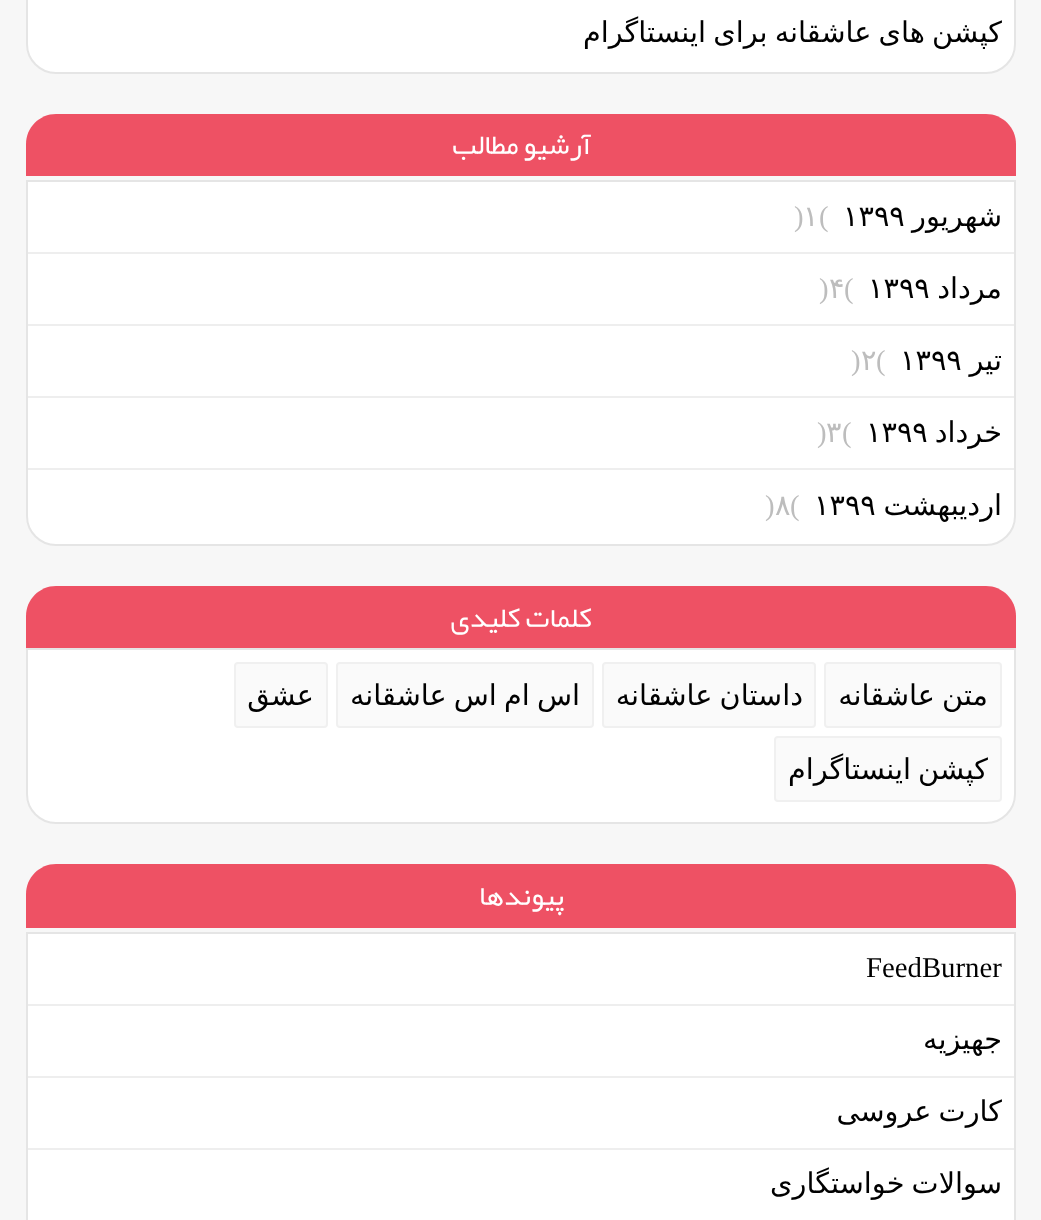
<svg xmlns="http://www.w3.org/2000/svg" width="1041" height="1220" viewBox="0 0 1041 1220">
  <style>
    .t1 { font: 28.75px DejaVu Sans; direction: rtl; fill: #000; }
    .t2 { font: 28.75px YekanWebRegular; direction: rtl; fill: #fff; }
    .t3 { font: 28.75px DejaVu Sans; fill: #000; }
    .t4 { font: 28.75px Liberation Serif; fill: #bdbdbd; }
    .t5 { font: 28.75px DejaVu Sans; fill: #bdbdbd; }
    .t6 { font: 28.75px Liberation Serif; fill: #000; }
  </style>
  <rect width="100%" height="100%" fill="#f7f7f7"/>
  <path d="M27-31H1015V44C1015 60 1002 73 986 73H56C40 73 27 60 27 44Z" fill="#fff" stroke="#e5e5e5" stroke-width="2"/>
  <text x="1002" y="42" word-spacing="-2" class="t1">کپشن های عاشقانه برای اینستاگرام</text>
  <path d="M56 114H986C1002.5 114 1016 127.5 1016 144V176H26V144C26 127.5 39.5 114 56 114Z" fill="#ee5164"/>
  <text x="591" y="154" class="t2">آرشیو مطالب</text>
  <path d="M27 181H1015V516C1015 532 1002 545 986 545H56C40 545 27 532 27 516Z" fill="#fff" stroke="#e5e5e5" stroke-width="2"/>
  <rect x="28" y="252" width="986" height="2" fill="#eee"/>
  <text x="1002" y="226" class="t1">شهریور</text>
  <text x="843" y="226" class="t3">۱۳۹۹</text>
  <text x="819" y="226" class="t4">(</text>
  <text x="803" y="226" class="t5">۱</text>
  <text x="794" y="226" class="t4">)</text>
  <rect x="28" y="324" width="986" height="2" fill="#eee"/>
  <text x="1002" y="298" class="t1">مرداد</text>
  <text x="868" y="298" class="t3">۱۳۹۹</text>
  <text x="844" y="298" class="t4">(</text>
  <text x="829" y="298" class="t5">۴</text>
  <text x="819" y="298" class="t4">)</text>
  <rect x="28" y="396" width="986" height="2" fill="#eee"/>
  <text x="1002" y="370" class="t1">تیر</text>
  <text x="900" y="370" class="t3">۱۳۹۹</text>
  <text x="876" y="370" class="t4">(</text>
  <text x="861" y="370" class="t5">۲</text>
  <text x="851" y="370" class="t4">)</text>
  <rect x="28" y="468" width="986" height="2" fill="#eee"/>
  <text x="1002" y="442" class="t1">خرداد</text>
  <text x="866" y="442" class="t3">۱۳۹۹</text>
  <text x="842" y="442" class="t4">(</text>
  <text x="826" y="442" class="t5">۳</text>
  <text x="817" y="442" class="t4">)</text>
  <text x="1002" y="515" class="t1">ارديبهشت</text>
  <text x="814" y="515" class="t3">۱۳۹۹</text>
  <text x="790" y="515" class="t4">(</text>
  <text x="775" y="515" class="t5">۸</text>
  <text x="765" y="515" class="t4">)</text>
  <path d="M56 586H986C1002.5 586 1016 599.5 1016 616V648H26V616C26 599.5 39.5 586 56 586Z" fill="#ee5164"/>
  <text x="592" y="627" class="t2">کلمات کلیدی</text>
  <path d="M27 649H1015V794C1015 810 1002 823 986 823H56C40 823 27 810 27 794Z" fill="#fff" stroke="#e5e5e5" stroke-width="2"/>
  <rect x="825" y="663" width="176" height="64" rx="3" fill="#fafafa" stroke="#f0f0f0" stroke-width="2"/>
  <text x="988" y="705" word-spacing="-2" class="t1">متن عاشقانه</text>
  <rect x="603" y="663" width="212" height="64" rx="3" fill="#fafafa" stroke="#f0f0f0" stroke-width="2"/>
  <text x="803" y="705" word-spacing="-2" class="t1">داستان عاشقانه</text>
  <rect x="337" y="663" width="256" height="64" rx="3" fill="#fafafa" stroke="#f0f0f0" stroke-width="2"/>
  <text x="580" y="705" word-spacing="-2" class="t1">اس ام اس عاشقانه</text>
  <rect x="235" y="663" width="92" height="64" rx="3" fill="#fafafa" stroke="#f0f0f0" stroke-width="2"/>
  <text x="314" y="705" class="t1">عشق</text>
  <rect x="775" y="737" width="226" height="64" rx="3" fill="#fafafa" stroke="#f0f0f0" stroke-width="2"/>
  <text x="988" y="779" word-spacing="-2" class="t1">کپشن اینستاگرام</text>
  <path d="M56 864H986C1002.5 864 1016 877.5 1016 894V928H26V894C26 877.5 39.5 864 56 864Z" fill="#ee5164"/>
  <text x="564" y="905" class="t2">پیوندها</text>
  <rect x="27" y="933" width="988" height="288" fill="#fff" stroke="#e5e5e5" stroke-width="2"/>
  <rect x="28" y="1004" width="986" height="2" fill="#eee"/>
  <text x="866" y="977" class="t6">FeedBurner</text>
  <rect x="28" y="1076" width="986" height="2" fill="#eee"/>
  <text x="1002" y="1049" class="t1">جهیزیه</text>
  <rect x="28" y="1148" width="986" height="2" fill="#eee"/>
  <text x="1002" y="1121" word-spacing="-2" class="t1">کارت عروسی</text>
  <text x="1002" y="1193" word-spacing="-2" class="t1">سوالات خواستگاری</text>
</svg>
